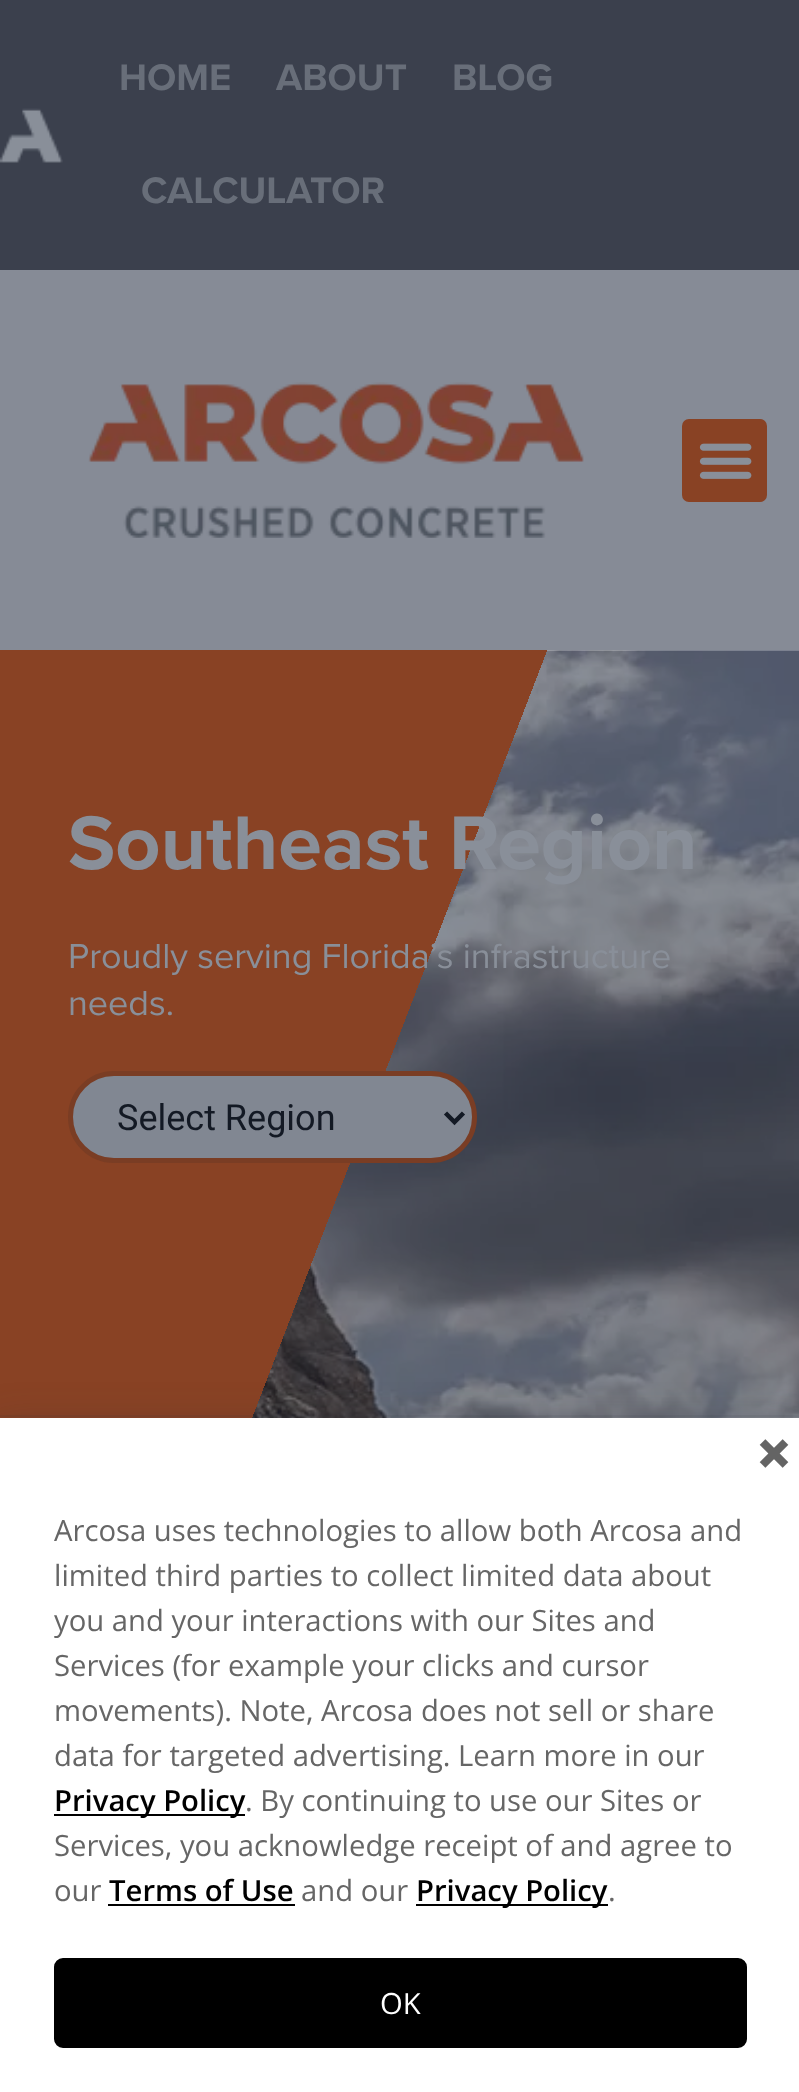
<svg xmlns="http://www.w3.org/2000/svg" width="799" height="2092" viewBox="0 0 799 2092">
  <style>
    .t1 { font: bold 38.25px Proxima Nova; fill: #686e79; }
    .t2 { font: bold 78.75px Proxima Nova; fill: #898f99; }
    .t3 { font: 36px Proxima Nova; fill: #898f99; }
    .t4 { font: 36px Roboto; fill: #131924; }
    .t5 { font: 29.25px Open Sans; fill: #666; }
    .t6 { font: 600 29.25px Open Sans; fill: #000; }
    .t7 { font: 29.25px Open Sans; fill: #fff; }
  </style>
  <defs>
    <linearGradient id="g1" gradientUnits="userSpaceOnUse" x1="-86" y1="874" x2="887" y2="1248"><stop offset="0.49" stop-color="#894224"/><stop offset="0.49" stop-color="#894224" stop-opacity="0"/></linearGradient>
  </defs>
  <rect width="100%" height="100%" fill="#fff"/>
  <rect x="0" y="0" width="799" height="270" fill="#3b404d"/>
  <image x="0" y="108" width="63" height="55" href="images/1.png"/>
  <text x="119" y="90" class="t1">HOME</text>
  <text x="276" y="90" class="t1">ABOUT</text>
  <text x="452" y="90" class="t1">BLOG</text>
  <text x="141" y="203" class="t1">CALCULATOR</text>
  <rect x="0" y="270" width="799" height="380" fill="#868b96"/>
  <image x="88" y="382" width="496" height="156" href="images/2.png"/>
  <rect x="682" y="419" width="85" height="83" rx="7" fill="#894224"/>
  <image x="699" y="443" width="53" height="36" href="images/3.png"/>
  <image x="252" y="650" width="547" height="768" href="images/4.png"/>
  <rect x="0" y="650" width="547" height="768" fill="url(#g1)"/>
  <text x="68" y="869" class="t2">Southeast Region</text>
  <text x="68" y="968" class="t3">Proudly serving Florida’s infrastructure</text>
  <text x="68" y="1015" class="t3">needs.</text>
  <rect x="70.5" y="1073.5" width="404" height="87" rx="43.5" fill="#818792" stroke="#7a3d24" stroke-width="5"/>
  <path d="M445.5 1113L454.5 1122L463.5 1113" fill="none" stroke="#131924" stroke-width="4.5"/>
  <text x="117" y="1130" class="t4">Select Region</text>
  <rect x="-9" y="1431" width="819" height="648" fill="#242f424f" filter="blur(22.5px)"/>
  <rect x="-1" y="1416" width="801" height="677" fill="none" stroke="#242f4214" stroke-width="2"/>
  <rect x="0" y="1418" width="799" height="674" fill="#fff"/>
  <text x="54" y="1541" class="t5">Arcosa uses technologies to allow both Arcosa and</text>
  <text x="54" y="1586" class="t5">limited third parties to collect limited data about</text>
  <text x="54" y="1631" class="t5">you and your interactions with our Sites and</text>
  <text x="54" y="1676" class="t5">Services (for example your clicks and cursor</text>
  <text x="54" y="1721" class="t5">movements). Note, Arcosa does not sell or share</text>
  <text x="54" y="1766" class="t5">data for targeted advertising. Learn more in our</text>
  <rect x="54" y="1814" width="191" height="2" fill="#000"/>
  <text x="54" y="1811" class="t6">Privacy Policy</text>
  <text x="245" y="1811" class="t5">. By continuing to use our Sites or</text>
  <text x="54" y="1856" class="t5">Services, you acknowledge receipt of and agree to</text>
  <text x="54" y="1901" class="t5">our</text>
  <text x="109" y="1901" class="t6">Terms of Use</text>
  <rect x="108" y="1904" width="187" height="2" fill="#000"/>
  <text x="301" y="1901" class="t5">and our</text>
  <rect x="416" y="1904" width="192" height="2" fill="#000"/>
  <text x="416" y="1901" class="t6">Privacy Policy</text>
  <text x="608" y="1901" class="t5">.</text>
  <image x="759" y="1439" width="30" height="29" href="images/5.png"/>
  <rect x="55" y="1959" width="691" height="88" rx="8" fill="#000" stroke="#000" stroke-width="2"/>
  <text x="380" y="2014" class="t7">OK</text>
</svg>
